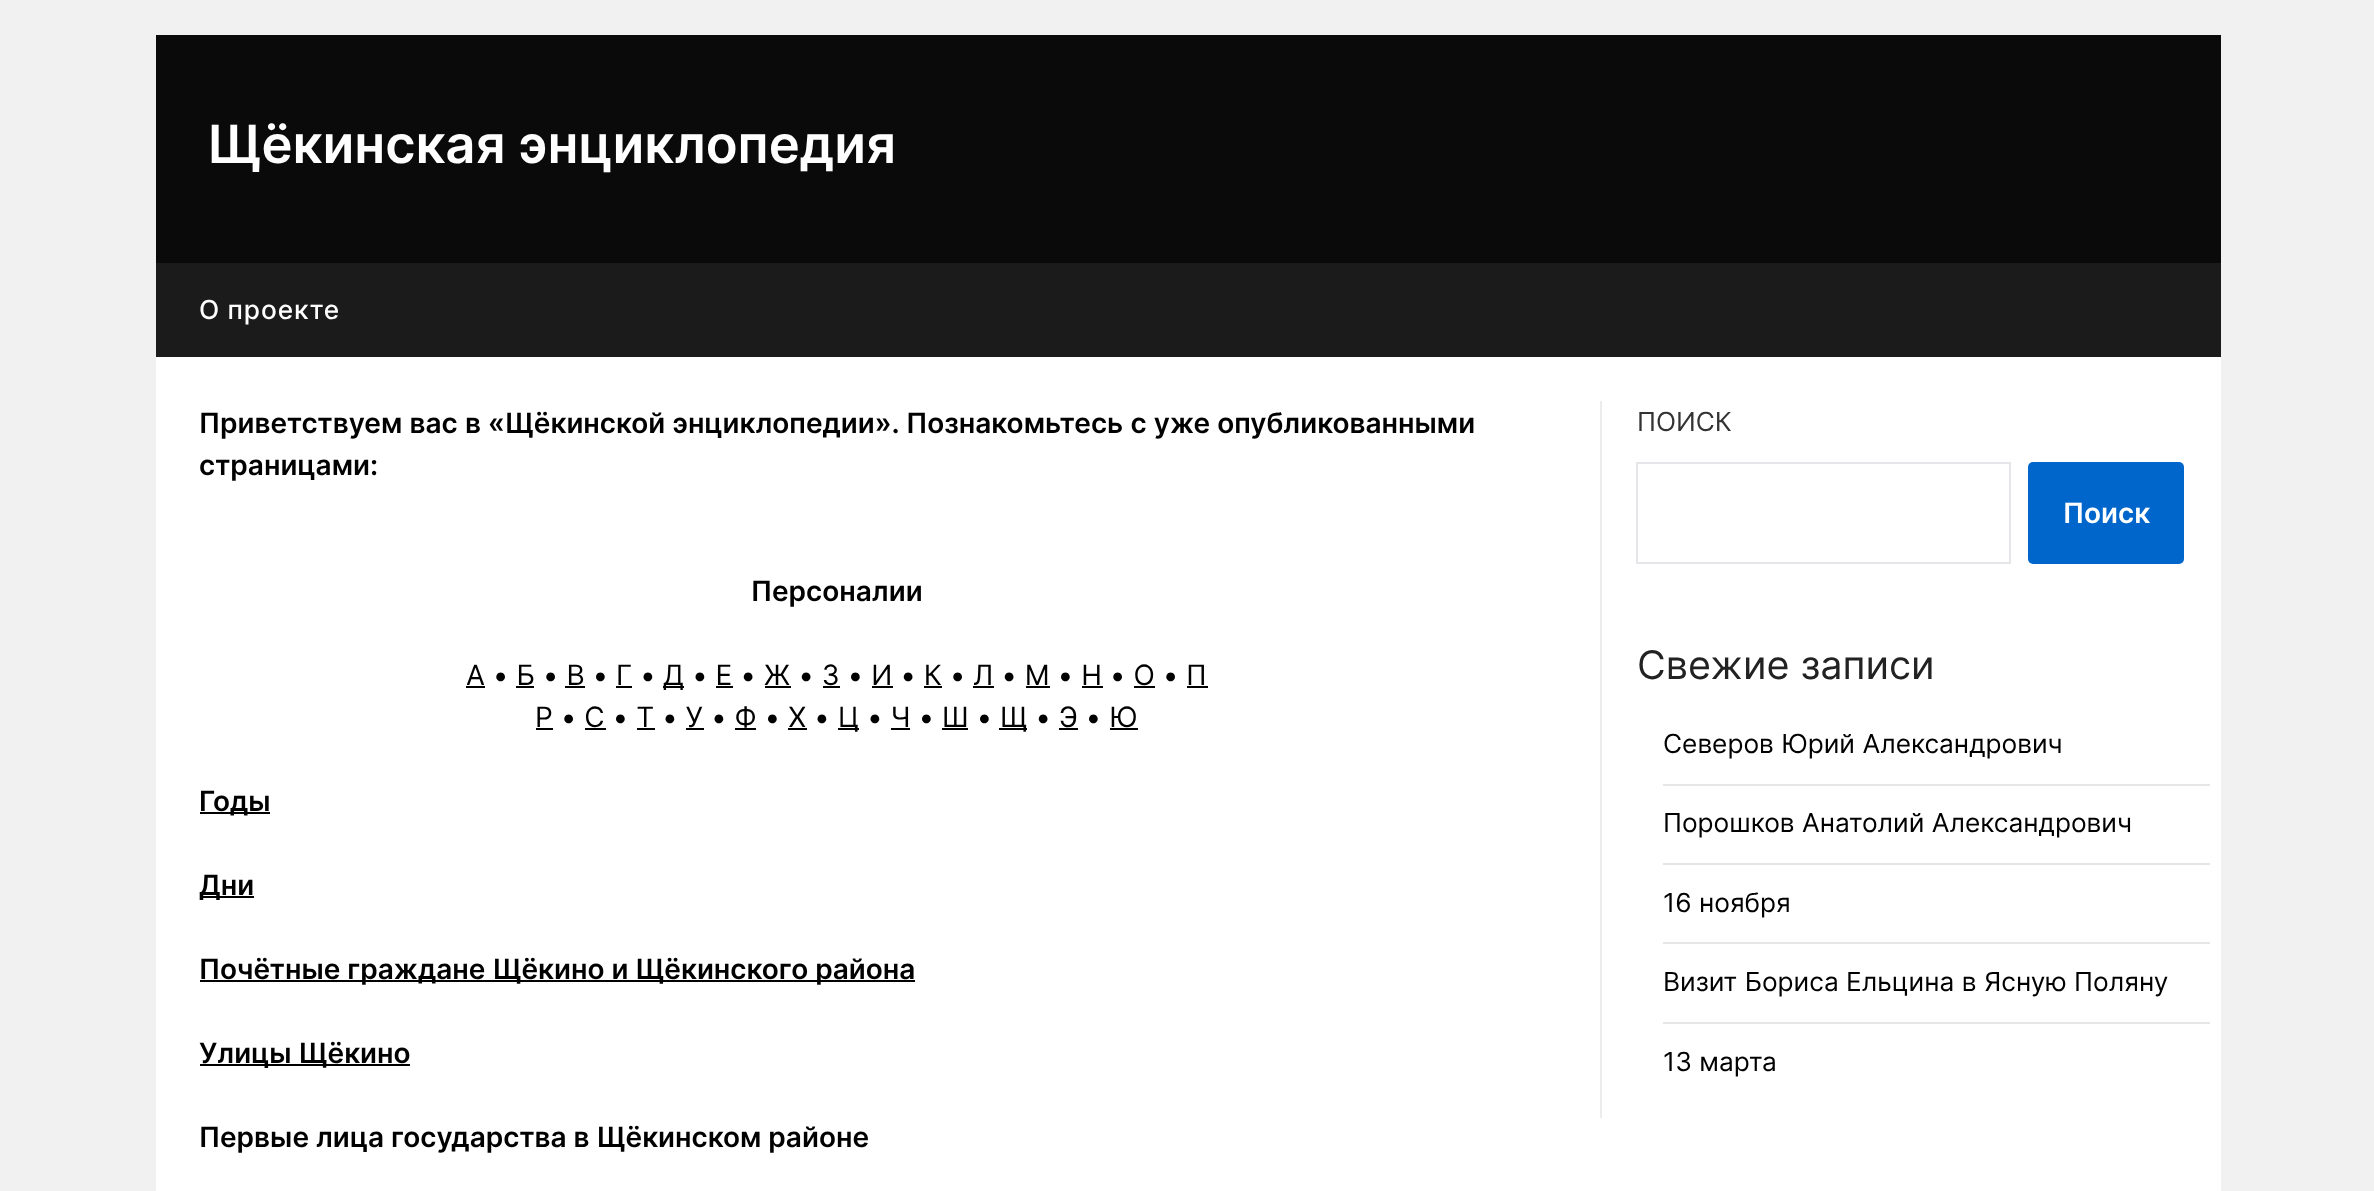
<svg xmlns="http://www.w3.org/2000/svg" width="2374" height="1191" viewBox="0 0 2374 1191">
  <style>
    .t1 { font: 600 52.5px Inter; fill: #fff; }
    .t2 { font: 500 26.25px Inter; letter-spacing: 0.9px; fill: #fff; }
    .t3 { font: 600 28px Inter; fill: #000; }
    .t4 { font: 28px Inter; fill: #000; }
    .t5 { font: 26.25px Inter; fill: #333; }
    .t6 { font: 600 28px Inter; fill: #fff; }
    .t7 { font: 39.5px Inter; fill: #222; }
    .t8 { font: 26.25px Inter; fill: #000; }
  </style>
  <rect width="100%" height="100%" fill="#f1f1f1"/>
  <rect x="156" y="35" width="2065" height="228" fill="#0a0a0a"/>
  <text x="207" y="163" class="t1">Щёкинская энциклопедия</text>
  <rect x="156" y="263" width="2065" height="94" fill="#1b1b1b"/>
  <text x="199" y="319" class="t2">О проекте</text>
  <rect x="156" y="357" width="2065" height="834" fill="#fff"/>
  <text x="199" y="433" word-spacing="0.25" class="t3">Приветствуем вас в «Щёкинской энциклопедии». Познакомьтесь с уже опубликованными</text>
  <text x="199" y="475" class="t3">страницами:</text>
  <text x="751" y="601" class="t3">Персоналии</text>
  <text x="466" y="685" class="t4">А • Б • В • Г •</text>
  <rect x="466" y="686" width="19" height="2" fill="#000"/>
  <rect x="663" y="686" width="21" height="2" fill="#000"/>
  <text x="663" y="685" class="t4">Д • Е • Ж • З • И • К • Л • М • Н • О • П</text>
  <rect x="516" y="686" width="18" height="2" fill="#000"/>
  <rect x="565" y="686" width="20" height="2" fill="#000"/>
  <rect x="616" y="686" width="16" height="2" fill="#000"/>
  <rect x="716" y="686" width="17" height="2" fill="#000"/>
  <rect x="765" y="686" width="26" height="2" fill="#000"/>
  <rect x="823" y="686" width="17" height="2" fill="#000"/>
  <rect x="872" y="686" width="21" height="2" fill="#000"/>
  <rect x="924" y="686" width="18" height="2" fill="#000"/>
  <rect x="973" y="686" width="21" height="2" fill="#000"/>
  <rect x="1026" y="686" width="24" height="2" fill="#000"/>
  <rect x="1082" y="686" width="21" height="2" fill="#000"/>
  <rect x="1134" y="686" width="21" height="2" fill="#000"/>
  <rect x="1187" y="686" width="21" height="2" fill="#000"/>
  <text x="535" y="727" class="t4">Р • С • Т • У • Ф • Х •</text>
  <rect x="536" y="728" width="17" height="2" fill="#000"/>
  <rect x="838" y="728" width="21" height="2" fill="#000"/>
  <text x="838" y="727" class="t4">Ц • Ч • Ш •</text>
  <rect x="999" y="728" width="28" height="2" fill="#000"/>
  <text x="1000" y="727" class="t4">Щ • Э • Ю</text>
  <rect x="585" y="728" width="21" height="2" fill="#000"/>
  <rect x="637" y="728" width="18" height="2" fill="#000"/>
  <rect x="686" y="728" width="18" height="2" fill="#000"/>
  <rect x="735" y="728" width="21" height="2" fill="#000"/>
  <rect x="788" y="728" width="19" height="2" fill="#000"/>
  <rect x="891" y="728" width="19" height="2" fill="#000"/>
  <rect x="942" y="728" width="26" height="2" fill="#000"/>
  <rect x="1059" y="728" width="19" height="2" fill="#000"/>
  <rect x="1110" y="728" width="28" height="2" fill="#000"/>
  <rect x="200" y="812" width="70" height="2" fill="#000"/>
  <text x="199" y="811" class="t3">Годы</text>
  <rect x="200" y="896" width="54" height="2" fill="#000"/>
  <text x="199" y="895" class="t3">Дни</text>
  <rect x="200" y="980" width="715" height="2" fill="#000"/>
  <text x="199" y="979" class="t3">Почётные граждане Щёкино и Щёкинского района</text>
  <rect x="200" y="1064" width="210" height="2" fill="#000"/>
  <text x="199" y="1063" class="t3">Улицы Щёкино</text>
  <text x="199" y="1147" class="t3">Первые лица государства в Щёкинском районе</text>
  <rect x="1600" y="401" width="2" height="717" fill="#ececec"/>
  <text x="1637" y="431" class="t5">ПОИСК</text>
  <rect x="1637" y="463" width="373" height="100" fill="none" stroke="#e5e6e9" stroke-width="2"/>
  <rect x="2028" y="462" width="156" height="102" rx="5" fill="#06c"/>
  <text x="2063" y="523" class="t6">Поиск</text>
  <text x="1637" y="679" class="t7">Свежие записи</text>
  <rect x="1663" y="784" width="547" height="2" fill="#e6e6e6"/>
  <text x="1663" y="753" class="t8">Северов Юрий Александрович</text>
  <rect x="1663" y="863" width="547" height="2" fill="#e6e6e6"/>
  <text x="1663" y="832" class="t8">Порошков Анатолий Александрович</text>
  <rect x="1663" y="942" width="547" height="2" fill="#e6e6e6"/>
  <text x="1663" y="912" class="t8">16 ноября</text>
  <rect x="1663" y="1022" width="547" height="2" fill="#e6e6e6"/>
  <text x="1663" y="991" class="t8">Визит Бориса Ельцина в Ясную Поляну</text>
  <text x="1663" y="1071" class="t8">13 марта</text>
</svg>
